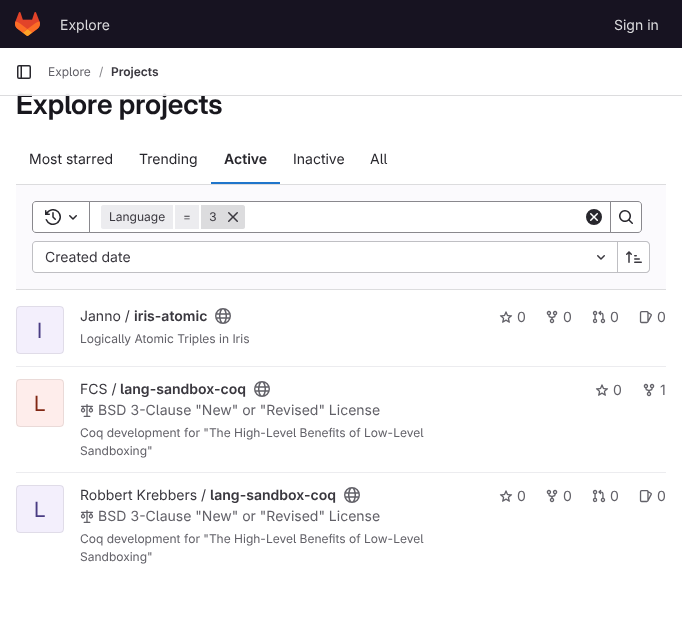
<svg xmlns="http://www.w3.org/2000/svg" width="682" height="638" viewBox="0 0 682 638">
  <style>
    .t1 { font: 14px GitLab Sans; fill: #dcdcde; }
    .t2 { font: 600 28px GitLab Sans; fill: #18171d; }
    .t3 { font: 12px GitLab Sans; fill: #626168; }
    .t4 { font: 12px GitLab Sans; fill: #89888d; }
    .t5 { font: 600 12px 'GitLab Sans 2'; fill: #3a383f; }
    .t6 { font: 14px GitLab Sans; fill: #28272d; }
    .t7 { font: 600 14px 'GitLab Sans 2'; fill: #28272d; }
    .t8 { font: 12px GitLab Sans; fill: #3a383f; }
    .t9 { font: 14px GitLab Sans; fill: #3a383f; }
    .t10 { font: 600 14px 'GitLab Sans 2'; fill: #3a383f; }
    .t11 { font: 14px GitLab Sans; fill: #626168; }
    .t12 { font: 21px 'GitLab Sans 2'; fill: #493c83; }
    .t13 { font: 21px 'GitLab Sans 2'; fill: #812713; }
  </style>
  <rect width="100%" height="100%" fill="#fff"/>
  <rect x="0" y="0" width="682" height="48" fill="#171321"/>
  <image x="15" y="12" width="25" height="24" href="images/1.png"/>
  <text x="60" y="30" class="t1">Explore</text>
  <text x="614" y="30" class="t1">Sign in</text>
  <text x="16" y="114" class="t2">Explore projects</text>
  <rect x="17" y="93" width="150" height="2" fill="#ffffffeb"/>
  <rect x="0" y="95" width="682" height="1" fill="#dcdcde"/>
  <image x="17" y="65" width="14" height="14" href="images/2.png"/>
  <text x="48" y="76" class="t3">Explore</text>
  <text x="99" y="76" class="t4">/</text>
  <text x="111" y="76" class="t5">Projects</text>
  <text x="29" y="164" class="t6">Most starred</text>
  <text x="139" y="164" class="t6">Trending</text>
  <text x="224" y="164" class="t7">Active</text>
  <rect x="211" y="182" width="69" height="2" fill="#1f75cb"/>
  <text x="293" y="164" class="t6">Inactive</text>
  <text x="370" y="164" class="t6">All</text>
  <rect x="16" y="185" width="650" height="104" fill="#fbfafd"/>
  <rect x="16" y="184" width="650" height="1" fill="#dcdcde"/>
  <rect x="16" y="289" width="650" height="1" fill="#dcdcde"/>
  <rect x="89.5" y="201.5" width="521" height="31" fill="#fff" stroke="#89888d"/>
  <path d="M36 201.5H89.5V232.5H36C34 232.5 32.5 231 32.5 229V205C32.5 203 34 201.5 36 201.5Z" fill="#fff" stroke="#89888d"/>
  <image x="45" y="209" width="16" height="16" href="images/3.png"/>
  <image x="69" y="215" width="8" height="5" href="images/4.png"/>
  <path d="M103 205H173V229H103C102 229 101 228 101 227V207C101 206 102 205 103 205Z" fill="#ececef"/>
  <text x="109" y="221" class="t8">Language</text>
  <rect x="175" y="205" width="24" height="24" fill="#ececef"/>
  <text x="183" y="221" class="t8">=</text>
  <path d="M201 205H243C244 205 245 206 245 207V227C245 228 244 229 243 229H201Z" fill="#dcdcde"/>
  <text x="209" y="221" class="t8">3</text>
  <image x="228" y="212" width="10" height="10" href="images/5.png"/>
  <image x="586" y="209" width="16" height="16" href="images/6.png"/>
  <path d="M610.5 201.5H638C640 201.5 641.5 203 641.5 205V229C641.5 231 640 232.5 638 232.5H610.5Z" fill="#fff" stroke="#89888d"/>
  <image x="619" y="210" width="14" height="14" href="images/7.png"/>
  <path d="M36 242H617V272H36C34.5 272 33 270.5 33 269V245C33 243.5 34.5 242 36 242Z" fill="#fff"/>
  <path d="M36 241H617V273H36C34 273 32 271 32 269V245C32 243 34 241 36 241ZM36 242H617V272H36C34 272 33 271 33 269V245C33 243 34 242 36 242Z" fill="#bfbfc3" fill-rule="evenodd"/>
  <text x="45" y="262" class="t9">Created date</text>
  <image x="597" y="255" width="8" height="5" href="images/8.png"/>
  <path d="M618 242H646C647.5 242 649 243.5 649 245V269C649 270.5 647.5 272 646 272H618Z" fill="#fff"/>
  <path d="M618 241H646C648 241 650 243 650 245V269C650 271 648 273 646 273H618ZM618 242H646C647.5 242 649 243.5 649 245V269C649 270.5 647.5 272 646 272H618Z" fill="#bfbfc3" fill-rule="evenodd"/>
  <rect x="617" y="241" width="1" height="32" fill="#bfbfc3"/>
  <image x="626" y="251" width="16" height="12" href="images/9.png"/>
  <rect x="16" y="366" width="650" height="1" fill="#ececef"/>
  <text x="80" y="321" class="t9">Janno /</text>
  <text x="134" y="321" class="t10">iris-atomic</text>
  <image x="215" y="308" width="16" height="16" href="images/10.png"/>
  <text x="80" y="343" class="t3">Logically Atomic Triples in Iris</text>
  <image x="499" y="311" width="14" height="12" href="images/11.png"/>
  <text x="517" y="322" class="t11">0</text>
  <image x="546" y="310" width="12" height="14" href="images/12.png"/>
  <text x="563" y="322" class="t11">0</text>
  <image x="592" y="310" width="14" height="14" href="images/13.png"/>
  <text x="610" y="322" class="t11">0</text>
  <image x="639" y="311" width="13" height="13" href="images/14.png"/>
  <text x="657" y="322" class="t11">0</text>
  <rect x="16" y="306" width="48" height="48" rx="4" fill="#f3effc"/>
  <rect x="16.5" y="306.5" width="47" height="47" rx="3.5" fill="none" stroke="#05050614"/>
  <text x="37" y="338" class="t12">I</text>
  <rect x="16" y="472" width="650" height="1" fill="#ececef"/>
  <text x="80" y="394" class="t9">FCS /</text>
  <text x="120" y="394" class="t10">lang-sandbox-coq</text>
  <image x="254" y="381" width="16" height="16" href="images/15.png"/>
  <image x="80" y="404" width="14" height="13" href="images/16.png"/>
  <text x="98" y="415" class="t11">BSD 3-Clause "New" or "Revised" License</text>
  <text x="80" y="437" class="t3">Coq development for "The High-Level Benefits of Low-Level</text>
  <text x="80" y="455" class="t3">Sandboxing"</text>
  <image x="595" y="384" width="14" height="12" href="images/17.png"/>
  <text x="613" y="395" class="t11">0</text>
  <image x="643" y="383" width="12" height="14" href="images/18.png"/>
  <text x="660" y="395" class="t11">1</text>
  <rect x="16" y="379" width="48" height="48" rx="4" fill="#feedeb"/>
  <rect x="16.5" y="379.5" width="47" height="47" rx="3.5" fill="none" stroke="#05050614"/>
  <text x="34" y="411" class="t13">L</text>
  <text x="80" y="500" class="t9">Robbert Krebbers /</text>
  <text x="210" y="500" class="t10">lang-sandbox-coq</text>
  <image x="344" y="487" width="16" height="16" href="images/10.png"/>
  <image x="80" y="510" width="14" height="13" href="images/16.png"/>
  <text x="98" y="521" class="t11">BSD 3-Clause "New" or "Revised" License</text>
  <text x="80" y="543" class="t3">Coq development for "The High-Level Benefits of Low-Level</text>
  <text x="80" y="561" class="t3">Sandboxing"</text>
  <image x="499" y="490" width="14" height="12" href="images/11.png"/>
  <text x="517" y="501" class="t11">0</text>
  <image x="546" y="489" width="12" height="14" href="images/19.png"/>
  <text x="563" y="501" class="t11">0</text>
  <image x="592" y="489" width="14" height="14" href="images/13.png"/>
  <text x="610" y="501" class="t11">0</text>
  <image x="639" y="490" width="13" height="13" href="images/14.png"/>
  <text x="657" y="501" class="t11">0</text>
  <rect x="16" y="485" width="48" height="48" rx="4" fill="#f3effc"/>
  <rect x="16.5" y="485.5" width="47" height="47" rx="3.5" fill="none" stroke="#05050614"/>
  <text x="34" y="517" class="t12">L</text>
</svg>
